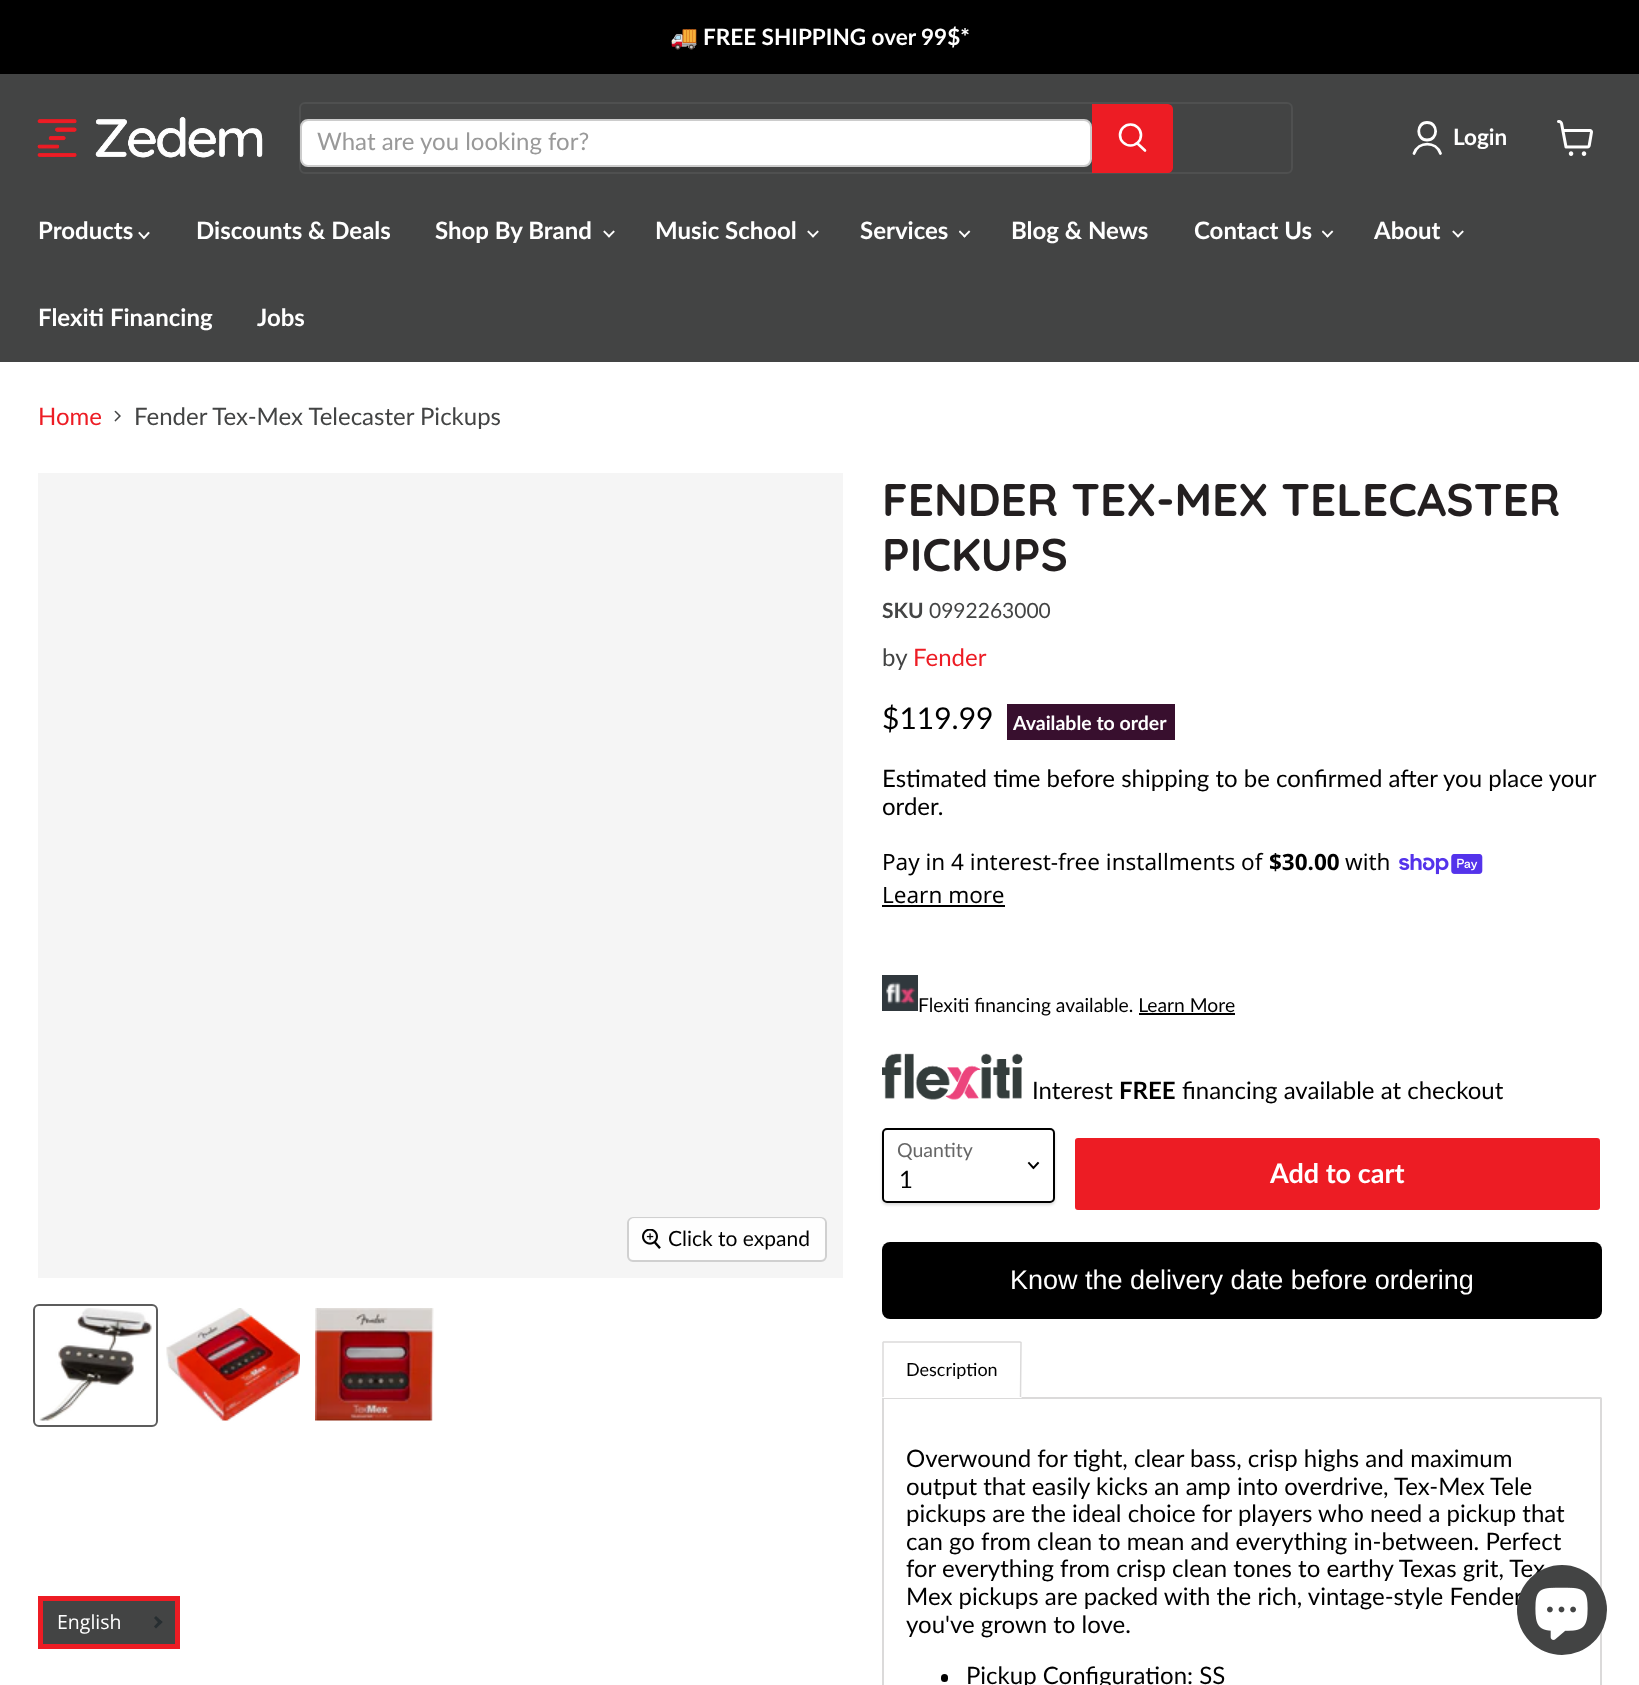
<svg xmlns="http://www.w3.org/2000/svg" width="1639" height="1685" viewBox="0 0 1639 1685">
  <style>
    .t1 { font: bold 22.5px Noto Color Emoji; fill: #fff; }
    .t2 { font: bold 22.5px Lato; fill: #fff; }
    .t3 { font: 24px Lato; fill: #999; }
    .t4 { font: bold 24px Lato; fill: #fff; }
    .t5 { font: 24px Lato; fill: #ed1c24; }
    .t6 { font: 24px Lato; fill: #434444; }
    .t7 { font: 21px Lato; fill: #000; }
    .t8 { font: bold 45.9px Quicksand; fill: #231f20; }
    .t9 { font: bold 21px Lato; fill: #434444; }
    .t10 { font: 21px Lato; fill: #434444; }
    .t11 { font: 30px Lato; fill: #000; }
    .t12 { font: bold 19.5px Lato; fill: #fff; }
    .t13 { font: 24px Lato; fill: #000; }
    .t14 { font: 22.5px Noto Sans; fill: #000; }
    .t15 { font: bold 22.5px Noto Sans; fill: #000; }
    .t16 { font: 19.25px Lato; fill: #000; }
    .t17 { font: bold 24px Lato; fill: #000; }
    .t18 { font: 19.5px Lato; fill: #666; }
    .t19 { font: bold 27px Lato; fill: #fff; }
    .t20 { font: 27px Liberation Sans; fill: #fff; }
    .t21 { font: 18px Lato; fill: #000; }
    .t22 { font: 19.5px Open Sans; fill: #fff; }
  </style>
  <rect width="100%" height="100%" fill="#fff"/>
  <rect x="0" y="0" width="1639" height="74" fill="#000"/>
  <text x="670" y="45" class="t1">🚚</text>
  <text x="703" y="45" class="t2">FREE SHIPPING over 99$*</text>
  <rect x="0" y="74" width="1639" height="288" fill="#434444"/>
  <image x="37" y="116" width="226" height="42" href="images/1.png"/>
  <rect x="300" y="103" width="992" height="70" rx="5" fill="none" stroke="#4f5050" stroke-width="2"/>
  <rect x="301" y="120" width="790" height="46" rx="7" fill="#fff" stroke="#ccc" stroke-width="2"/>
  <text x="317" y="150" class="t3">What are you looking for?</text>
  <path d="M1093 105H1168C1170 105 1172 107 1172 109V168C1172 170 1170 172 1168 172H1093Z" fill="#ed1c24" stroke="#ed1c24" stroke-width="2"/>
  <path d="M1145 150.5L1137.5 143.5" fill="none" stroke="#fff" stroke-width="2.6" stroke-linecap="round"/>
  <circle cx="1130.5" cy="135" r="10.5" fill="none" stroke="#fff" stroke-width="2.6"/>
  <path d="M1427 140C1438.5 140 1438.5 122.5 1427 122.5C1416 122.5 1416 140 1427 140ZM1440.5 153.5C1436 141 1418.5 141 1414 153.5" fill="none" stroke="#fff" stroke-width="2.8" stroke-linecap="round" stroke-linejoin="round"/>
  <text x="1453" y="145" class="t2">Login</text>
  <image x="1557" y="120" width="36" height="36" href="images/2.png"/>
  <text x="38" y="239" class="t4">Products</text>
  <path d="M144 238L148.5 233M144 238L139.5 233" fill="none" stroke="#fff" stroke-width="1.9" stroke-linecap="square"/>
  <text x="196" y="239" class="t4">Discounts &amp; Deals</text>
  <text x="435" y="239" class="t4">Shop By Brand</text>
  <image x="603" y="230" width="12" height="8" href="images/3.png"/>
  <text x="655" y="239" class="t4">Music School</text>
  <image x="807" y="230" width="12" height="8" href="images/3.png"/>
  <text x="860" y="239" class="t4">Services</text>
  <image x="959" y="230" width="12" height="8" href="images/4.png"/>
  <text x="1011" y="239" class="t4">Blog &amp; News</text>
  <text x="1194" y="239" class="t4">Contact Us</text>
  <image x="1322" y="230" width="12" height="8" href="images/4.png"/>
  <text x="1374" y="239" class="t4">About</text>
  <image x="1452" y="230" width="12" height="8" href="images/3.png"/>
  <text x="38" y="326" class="t4">Flexiti Financing</text>
  <text x="257" y="326" class="t4">Jobs</text>
  <text x="38" y="425" class="t5">Home</text>
  <image x="114" y="410" width="7" height="12" href="images/5.png"/>
  <text x="134" y="425" class="t6">Fender Tex-Mex Telecaster Pickups</text>
  <rect x="38" y="473" width="805" height="805" fill="#f5f5f5"/>
  <rect x="628" y="1218" width="198" height="43" rx="5" fill="none" stroke="#d0d0d0" stroke-width="2"/>
  <rect x="629" y="1218" width="196" height="42" rx="5" fill="#ffffffe6"/>
  <image x="642" y="1229" width="19" height="20" href="images/6.png"/>
  <text x="668" y="1246" class="t7">Click to expand</text>
  <rect x="34" y="1305" width="123" height="121" rx="5" fill="none" stroke="#5c5c5c" stroke-width="2"/>
  <image x="39" y="1308" width="113" height="113" href="images/7.png"/>
  <image x="166" y="1308" width="134" height="113" href="images/8.png"/>
  <image x="315" y="1308" width="119" height="113" href="images/9.png"/>
  <text x="882" y="516" class="t8">FENDER TEX-MEX TELECASTER</text>
  <text x="882" y="571" class="t8">PICKUPS</text>
  <text x="882" y="618" class="t9">SKU</text>
  <text x="929" y="618" class="t10">0992263000</text>
  <text x="882" y="666" class="t6">by</text>
  <text x="913" y="666" class="t5">Fender</text>
  <text x="882" y="729" class="t11">$119.99</text>
  <rect x="1007" y="704" width="168" height="36" fill="#380f2e"/>
  <text x="1013" y="730" class="t12">Available to order</text>
  <text x="882" y="787" class="t13">Estimated time before shipping to be confirmed after you place your</text>
  <text x="882" y="815" class="t13">order.</text>
  <text x="882" y="870" class="t14">Pay in 4 interest-free installments of</text>
  <text x="1269" y="870" class="t15">$30.00</text>
  <text x="1345" y="870" class="t14">with</text>
  <image x="1399" y="854" width="84" height="21" href="images/10.png"/>
  <text x="882" y="903" class="t14">Learn more</text>
  <rect x="882" y="905" width="123" height="2" fill="#000"/>
  <image x="882" y="975" width="36" height="36" href="images/11.png"/>
  <text x="918" y="1012" class="t16">Flexiti financing available. Learn More</text>
  <rect x="1139" y="1013" width="96" height="2" fill="#000"/>
  <image x="882" y="1053" width="141" height="47" href="images/12.png"/>
  <text x="1032" y="1099" class="t13">Interest</text>
  <text x="1119" y="1099" class="t17">FREE</text>
  <text x="1182" y="1099" class="t13">financing available at checkout</text>
  <rect x="882" y="1130" width="173" height="75" rx="5" fill="#00000026" filter="blur(1.5px)"/>
  <rect x="883" y="1129" width="171" height="73" rx="4" fill="#fff" stroke="#000" stroke-width="2"/>
  <text x="897" y="1157" class="t18">Quantity</text>
  <path d="M1033.5 1168L1038 1163M1033.5 1168L1029 1163" fill="none" stroke="#000" stroke-width="1.9" stroke-linecap="square"/>
  <text x="899" y="1188" class="t13">1</text>
  <rect x="1074" y="1137" width="527" height="74" rx="4" fill="#ed1c24" stroke="#fff" stroke-width="2"/>
  <text x="1270" y="1183" class="t19">Add to cart</text>
  <rect x="882" y="1242" width="720" height="77" rx="8" fill="#000"/>
  <text x="1010" y="1289" class="t20">Know the delivery date before ordering</text>
  <rect x="883" y="1398" width="718" height="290" rx="0.5" fill="none" stroke="#dbdada" stroke-width="2"/>
  <rect x="882" y="1341" width="140" height="57" rx="1.5" fill="#fff"/>
  <path d="M883 1397V1342.5L883.5 1342H1020L1021 1342.5L1020.5 1397" fill="none" stroke="#dbdada" stroke-width="1.5"/>
  <text x="906" y="1376" class="t21">Description</text>
  <text x="906" y="1467" class="t13">Overwound for tight, clear bass, crisp highs and maximum</text>
  <text x="906" y="1495" class="t13">output that easily kicks an amp into overdrive, Tex-Mex Tele</text>
  <text x="906" y="1522" class="t13">pickups are the ideal choice for players who need a pickup that</text>
  <text x="906" y="1550" class="t13">can go from clean to mean and everything in-between. Perfect</text>
  <text x="906" y="1577" class="t13">for everything from crisp clean tones to earthy Texas grit, Tex</text>
  <text x="906" y="1605" class="t13">Mex pickups are packed with the rich, vintage-style Fender</text>
  <text x="906" y="1633" class="t13">you've grown to love.</text>
  <rect x="941" y="1674" width="7" height="8" rx="3.5" fill="#000"/>
  <text x="966" y="1684" class="t13">Pickup Configuration: SS</text>
  <rect x="40.5" y="1598.5" width="137" height="48" fill="#434444" stroke="#ed1c24" stroke-width="5"/>
  <text x="57" y="1629" class="t22">English</text>
  <path d="M156 1616L162.5 1622L160 1624.5L154 1618Z" fill="#272e31"/>
  <path d="M160 1620L162.5 1622L156 1628.5L154 1626.5Z" fill="#272e31"/>
  <circle cx="1562" cy="1610" r="45" fill="#434444"/>
  <image x="1535" y="1587" width="53" height="53" href="images/13.png"/>
</svg>
